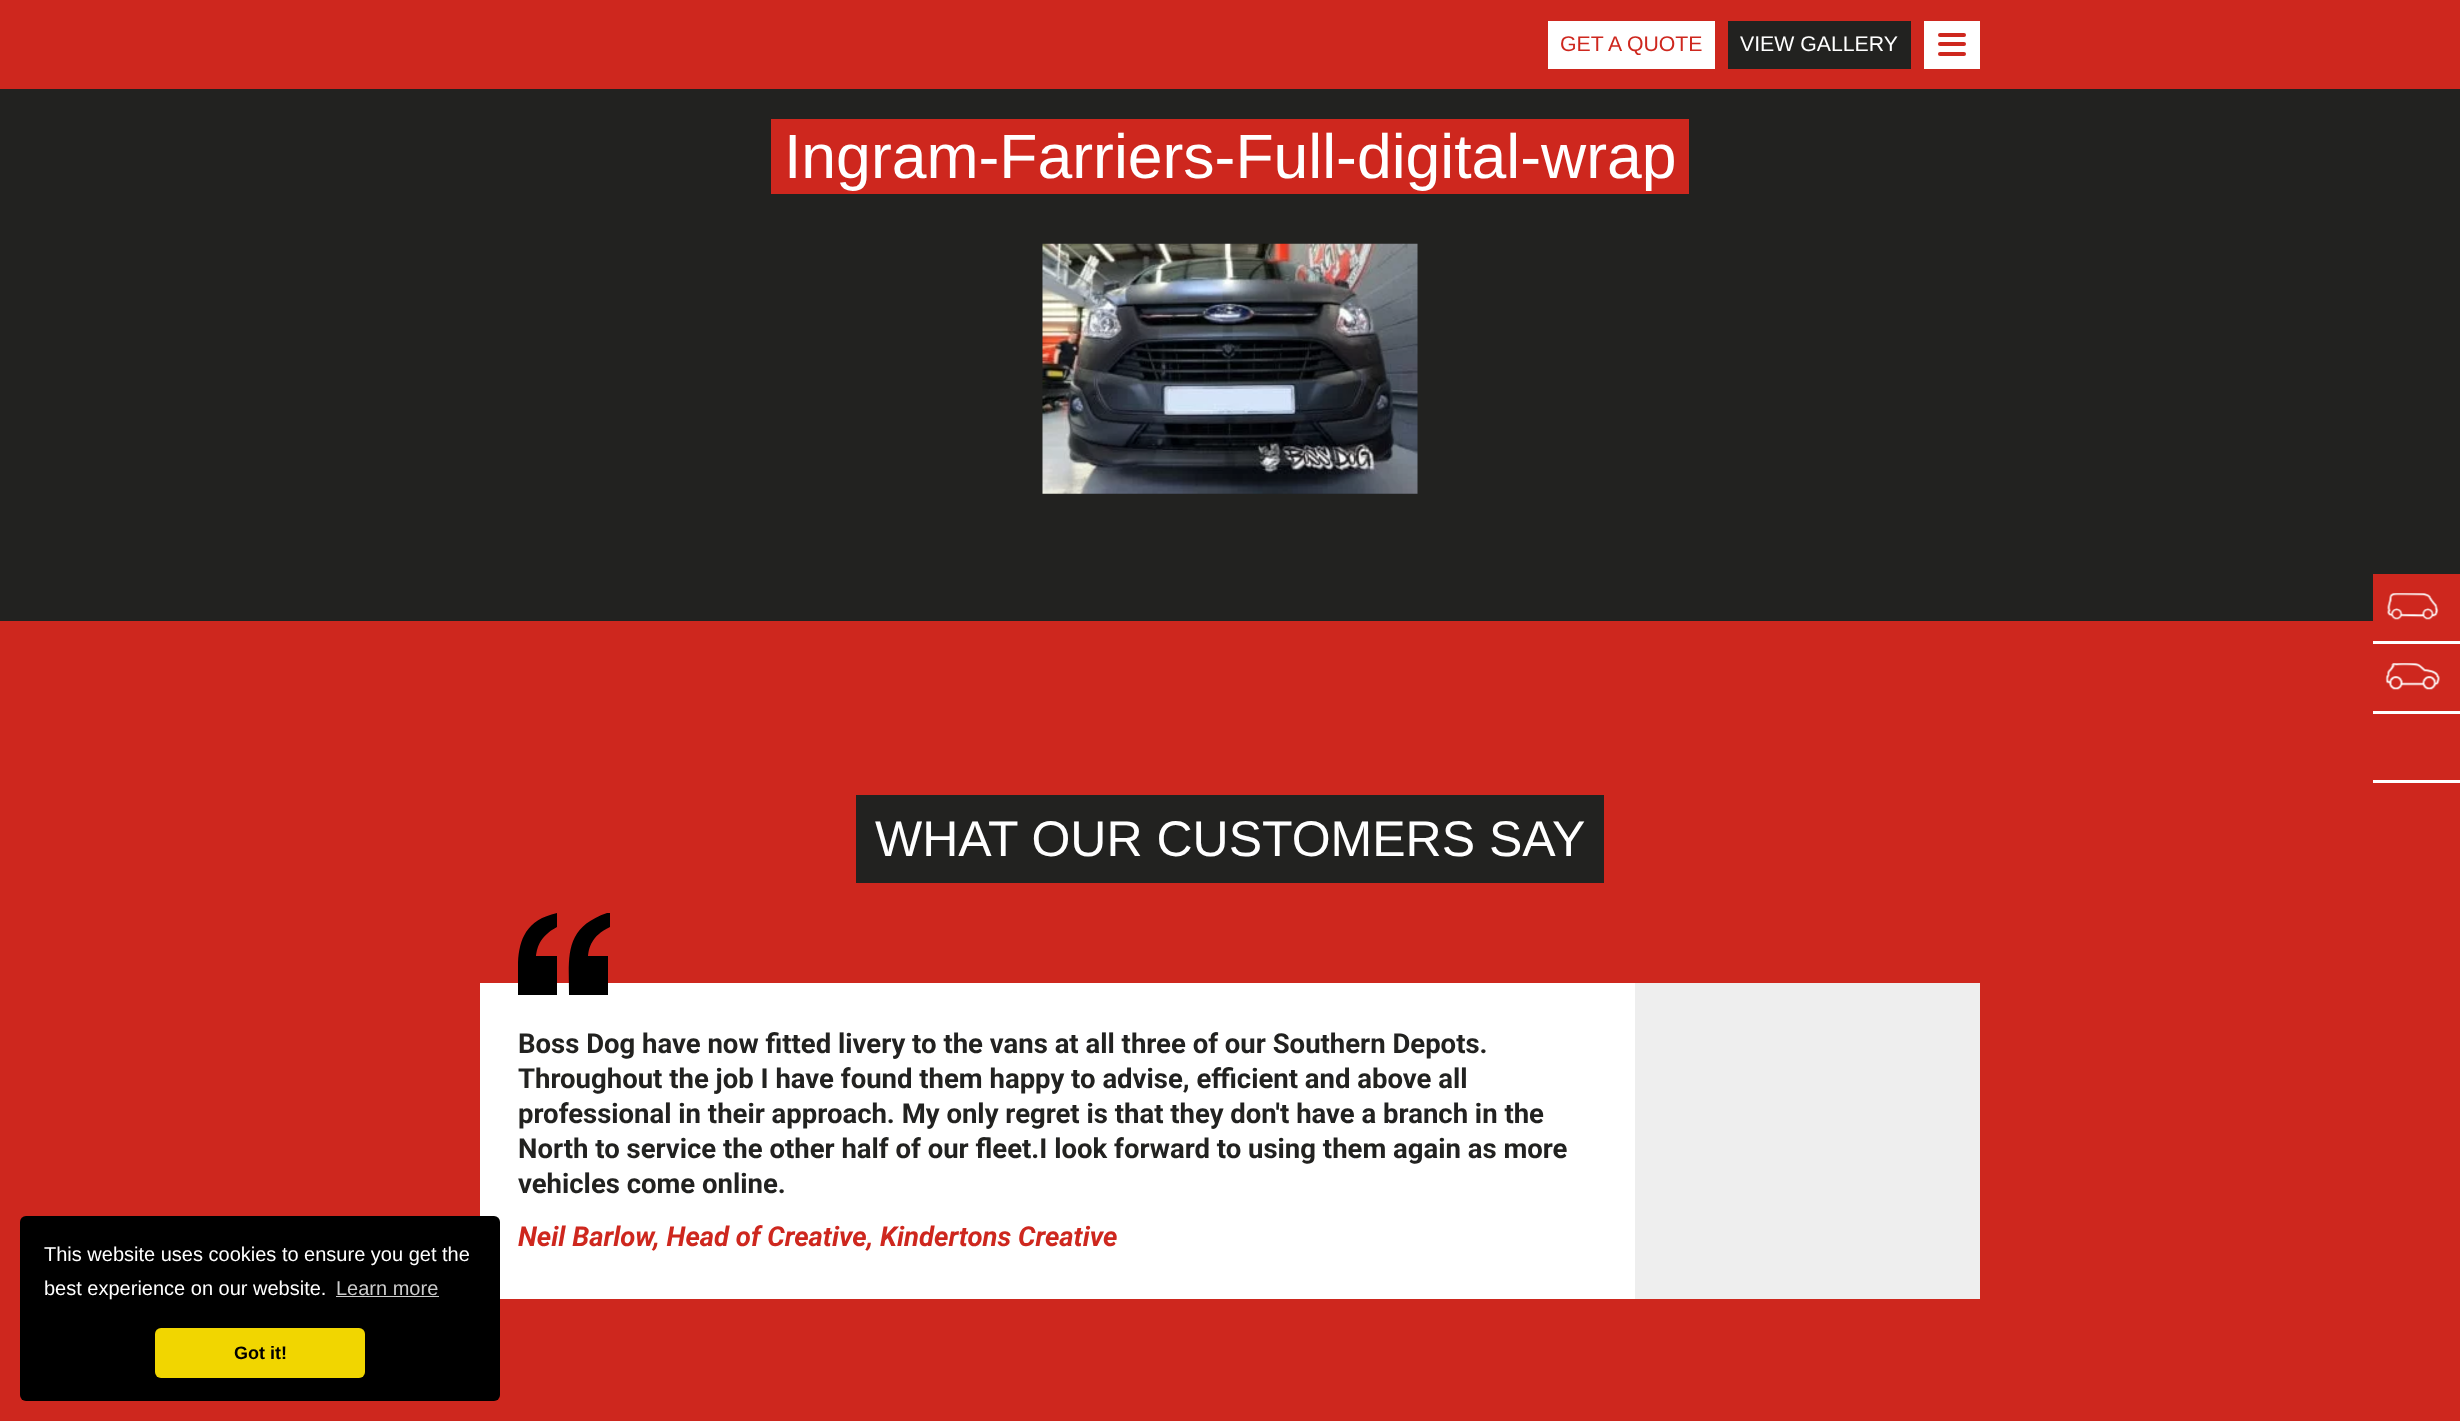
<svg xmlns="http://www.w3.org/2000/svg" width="2460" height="1421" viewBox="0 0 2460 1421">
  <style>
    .t1 { font: 21.25px Liberation Sans; fill: #ce271e; }
    .t2 { font: 21.25px Liberation Sans; fill: #fff; }
    .t3 { font: 62.5px Liberation Sans; fill: #fff; }
    .t4 { font: 50px Liberation Sans; fill: #fff; }
    .t5 { font: bold 27.5px Roboto; fill: #222220; }
    .t6 { font: italic bold 27.5px Roboto; fill: #ce271e; }
    .t7 { font: 20px Liberation Sans; fill: #fff; }
    .t8 { font: 20px Liberation Sans; fill: #ccc; }
    .t9 { font: bold 18px Liberation Sans; fill: #000; }
  </style>
  <defs>
    <clipPath id="clip1"><rect x="518" y="913" width="92" height="82"/></clipPath>
  </defs>
  <rect width="100%" height="100%" fill="#222220"/>
  <rect x="0" y="0" width="2460" height="89" fill="#ce271e"/>
  <rect x="1548" y="21" width="167" height="48" fill="#fff"/>
  <text x="1560" y="51" class="t1">GET A QUOTE</text>
  <rect x="1728" y="21" width="183" height="48" fill="#222220"/>
  <text x="1740" y="51" class="t2">VIEW GALLERY</text>
  <rect x="1924" y="21" width="56" height="48" fill="#fff"/>
  <rect x="1938" y="33" width="28" height="4" rx="2" fill="#ce271e"/>
  <rect x="1938" y="42" width="28" height="4" rx="2" fill="#ce271e"/>
  <rect x="1938" y="52" width="28" height="4" rx="2" fill="#ce271e"/>
  <rect x="771" y="119" width="918" height="75" fill="#ce271e"/>
  <text x="784" y="178" class="t3">Ingram-Farriers-Full-digital-wrap</text>
  <image x="1042" y="243" width="376" height="251" href="images/1.png"/>
  <rect x="0" y="621" width="2460" height="800" fill="#ce271e"/>
  <rect x="856" y="795" width="748" height="88" fill="#222220"/>
  <text x="875" y="856" class="t4">WHAT OUR CUSTOMERS SAY</text>
  <rect x="480" y="983" width="1155" height="316" fill="#fff"/>
  <g clip-path="url(#clip1)">
    <path d="M518 995C518 960 512 923 557 913V927C538 937 537 950 536 956H557V995ZM569 995C569 956 563 927 610 912V927C591 936 589 948 588 956H608V995Z" fill="#000"/>
  </g>
  <text x="518" y="1053" class="t5">Boss Dog have now fitted livery to the vans at all three of our Southern Depots.</text>
  <text x="518" y="1088" class="t5">Throughout the job I have found them happy to advise, efficient and above all</text>
  <text x="518" y="1123" class="t5">professional in their approach. My only regret is that they don't have a branch in the</text>
  <text x="518" y="1158" class="t5">North to service the other half of our fleet.I look forward to using them again as more</text>
  <text x="518" y="1193" class="t5">vehicles come online.</text>
  <text x="518" y="1246" class="t6">Neil Barlow, Head of Creative, Kindertons Creative</text>
  <rect x="1635" y="983" width="345" height="316" fill="#eee"/>
  <rect x="2373" y="574" width="87" height="47" fill="#ce271e"/>
  <rect x="2373" y="641" width="87" height="3" fill="#fff"/>
  <image x="2387" y="593" width="52" height="27" href="images/2.png"/>
  <rect x="2373" y="711" width="87" height="3" fill="#fff"/>
  <image x="2385" y="663" width="55" height="27" href="images/3.png"/>
  <rect x="2373" y="780" width="87" height="3" fill="#fff"/>
  <rect x="20" y="1216" width="480" height="185" rx="6" fill="#000"/>
  <text x="44" y="1261" class="t7">This website uses cookies to ensure you get the</text>
  <text x="44" y="1295" class="t7">best experience on our website.</text>
  <text x="336" y="1295" class="t8">Learn more</text>
  <rect x="336" y="1296" width="103" height="1" fill="#ccc"/>
  <rect x="155" y="1328" width="210" height="50" rx="6" fill="#f1d600"/>
  <text x="234" y="1359" class="t9">Got it!</text>
</svg>
